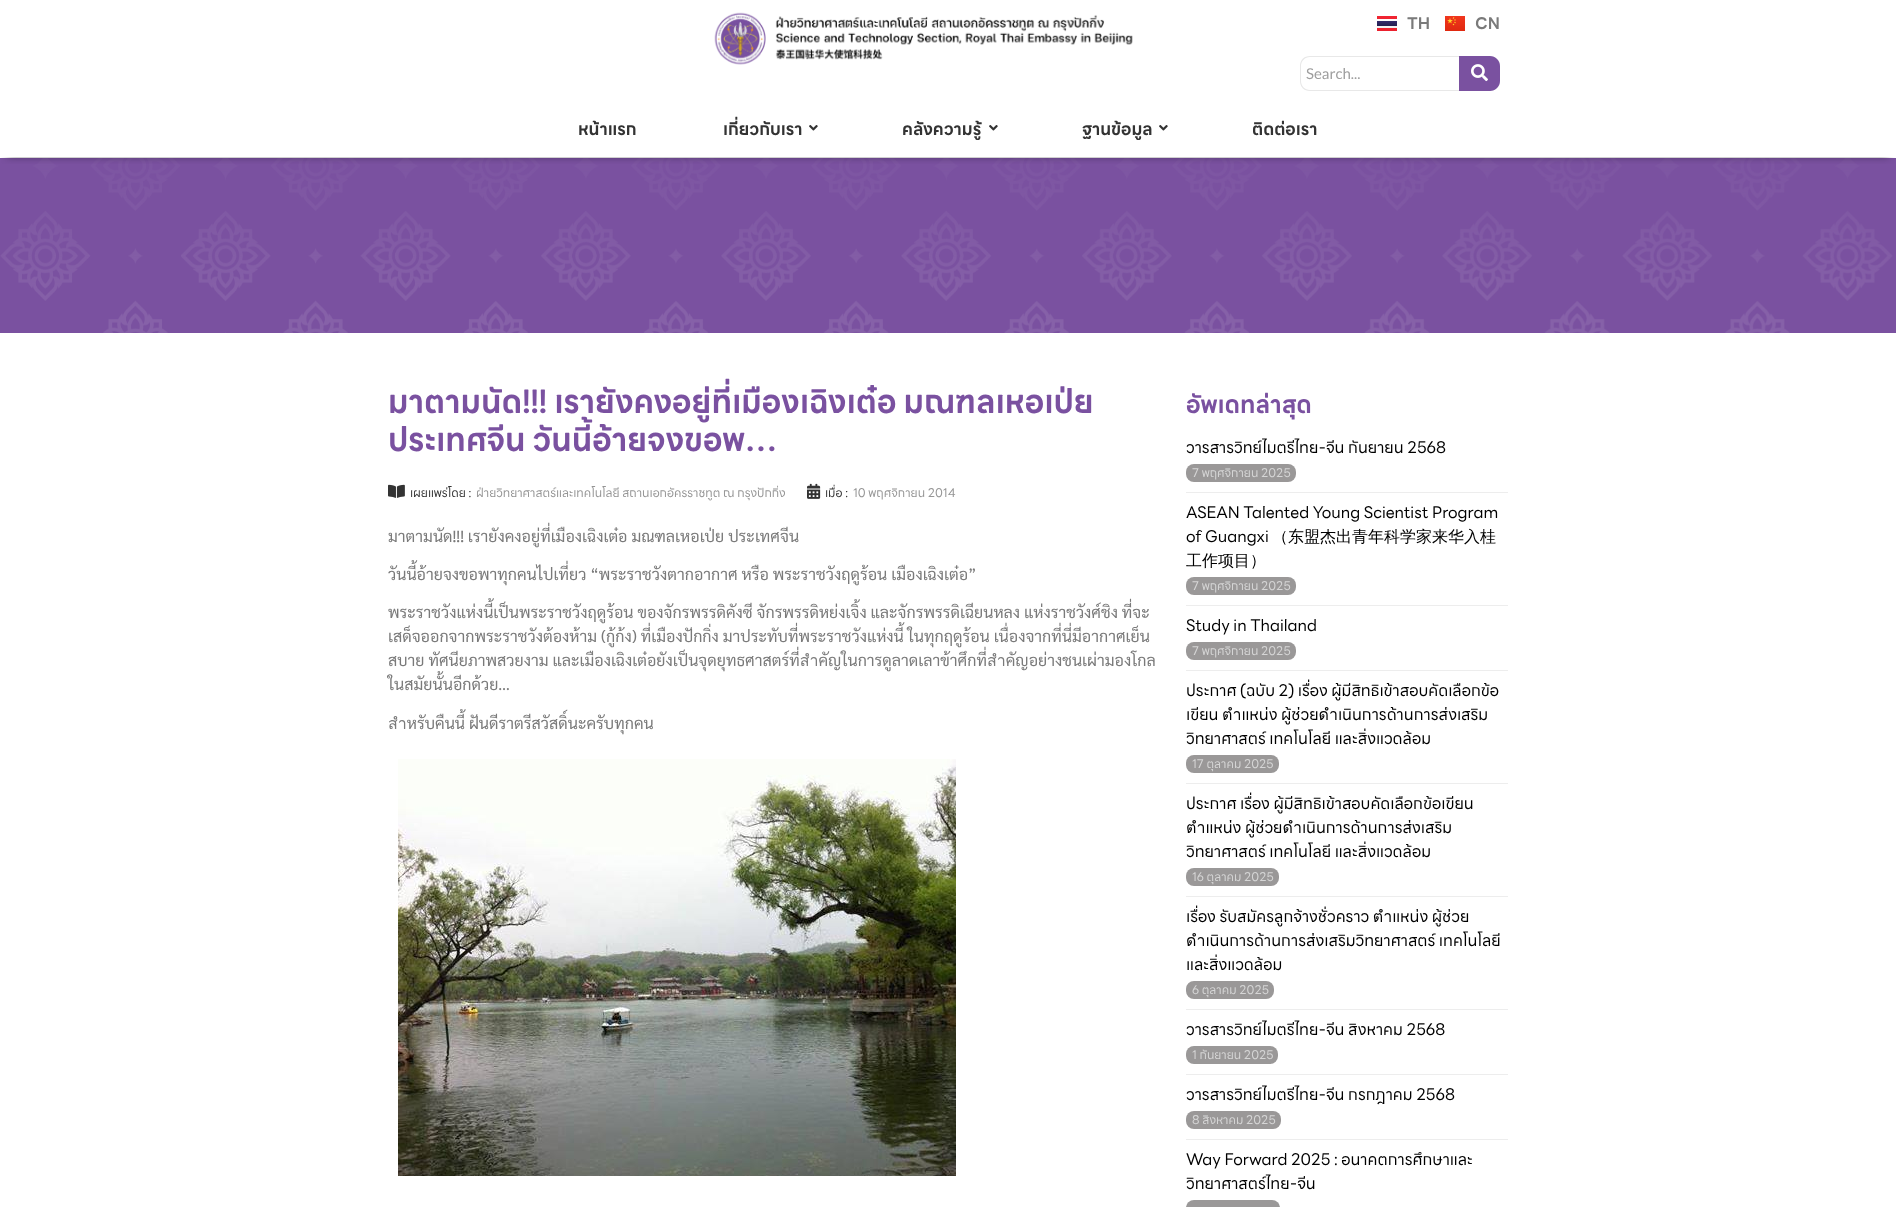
<svg xmlns="http://www.w3.org/2000/svg" width="1896" height="1207" viewBox="0 0 1896 1207">
  <style>
    .t1 { font: bold 16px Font; fill: #7a7a7a; }
    .t2 { font: 15px Lato; fill: #9e9e9e; }
    .t3 { font: bold 17px Font; fill: #333; }
    .t4 { font: bold 32px Font; fill: #7a51a0; }
    .t5 { font: 12px Font; fill: #333; }
    .t6 { font: 12px Font; fill: #959595; }
    .t7 { font: 16px Sarabun; fill: #7a7a7a; }
    .t8 { font: bold 24px Font; fill: #7a51a0; }
    .t9 { font: 16px Font; fill: #000; }
    .t10 { font: 12px Font; fill: #d6d6d6; }
    .t11 { font: 500 16px WenQuanYi Zen Hei; fill: #000; }
  </style>
  <defs>
    <clipPath id="clip1"><rect x="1" y="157" width="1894" height="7"/></clipPath>
  </defs>
  <rect width="100%" height="100%" fill="#fff"/>
  <image x="714" y="12" width="419" height="53" href="images/1.png"/>
  <image x="1377" y="16" width="20" height="15" href="images/2.png"/>
  <text x="1407" y="29" class="t1">TH</text>
  <image x="1445" y="16" width="20" height="15" href="images/3.png"/>
  <text x="1475" y="29" class="t1">CN</text>
  <path d="M1310 56H1459V91H1310C1304 91 1300 87 1300 81V66C1300 60 1304 56 1310 56ZM1310 57H1459V90H1310C1305 90 1301 86 1301 81V66C1301 61 1305 57 1310 57Z" fill="#e8e8e8" fill-rule="evenodd"/>
  <text x="1306" y="79" class="t2">Search...</text>
  <path d="M1459 56H1490C1495.5 56 1500 60.5 1500 66V81C1500 86.5 1495.5 91 1490 91H1459Z" fill="#7a51a0"/>
  <image x="1471" y="64" width="17" height="18" href="images/4.png"/>
  <rect x="0" y="158" width="1896" height="175" fill="#7a51a0"/>
  <image x="0" y="158" width="1893" height="175" href="images/6.png"/>
  <g clip-path="url(#clip1)">
    <rect x="7" y="114" width="1882" height="42" fill="#00000080" filter="blur(4.5px)"/>
  </g>
  <text x="578" y="135" class="t3">หน้าแรก</text>
  <text x="723" y="135" class="t3">เกี่ยวกับเรา</text>
  <image x="809" y="125" width="9" height="6" href="images/5.png"/>
  <text x="902" y="135" class="t3">คลังความรู้</text>
  <image x="989" y="125" width="9" height="6" href="images/5.png"/>
  <text x="1082" y="135" class="t3">ฐานข้อมูล</text>
  <image x="1159" y="125" width="9" height="6" href="images/5.png"/>
  <text x="1252" y="135" class="t3">ติดต่อเรา</text>
  <text x="388" y="413" class="t4">มาตามนัด!!! เรายังคงอยู่ที่เมืองเฉิงเต๋อ มณฑลเหอเป่ย</text>
  <text x="388" y="451" class="t4">ประเทศจีน วันนี้อ้ายจงขอพ…</text>
  <image x="388" y="484" width="17" height="14" href="images/7.png"/>
  <text x="410" y="497" class="t5">เผยแพร่โดย :</text>
  <text x="476" y="497" class="t6">ฝ่ายวิทยาศาสตร์และเทคโนโลยี สถานเอกอัครราชทูต ณ กรุงปักกิ่ง</text>
  <image x="807" y="483" width="14" height="16" href="images/8.png"/>
  <text x="825" y="497" class="t5">เมื่อ :</text>
  <text x="853" y="497" class="t6">10 พฤศจิกายน 2014</text>
  <text x="388" y="542" class="t7">มาตามนัด!!! เรายังคงอยู่ที่เมืองเฉิงเต๋อ มณฑลเหอเป่ย ประเทศจีน</text>
  <text x="388" y="580" class="t7">วันนี้อ้ายจงขอพาทุกคนไปเที่ยว “พระราชวังตากอากาศ หรือ พระราชวังฤดูร้อน เมืองเฉิงเต๋อ”</text>
  <text x="388" y="618" class="t7">พระราชวังแห่งนี้เป็นพระราชวังฤดูร้อน ของจักรพรรดิคังซี จักรพรรดิหย่งเจิ้ง และจักรพรรดิเฉียนหลง แห่งราชวังศ์ชิง ที่จะ</text>
  <text x="388" y="642" class="t7">เสด็จออกจากพระราชวังต้องห้าม (กู้ก้ง) ที่เมืองปักกิ่ง มาประทับที่พระราชวังแห่งนี้ ในทุกฤดูร้อน เนื่องจากที่นี่มีอากาศเย็น</text>
  <text x="388" y="666" class="t7">สบาย ทัศนียภาพสวยงาม และเมืองเฉิงเต๋อยังเป็นจุดยุทธศาสตร์ที่สำคัญในการดูลาดเลาข้าศึกที่สำคัญอย่างชนเผ่ามองโกล</text>
  <text x="388" y="690" class="t7">ในสมัยนั้นอีกด้วย…</text>
  <text x="388" y="729" class="t7">สำหรับคืนนี้ ฝันดีราตรีสวัสดิ์นะครับทุกคน</text>
  <image x="398" y="759" width="558" height="417" href="images/9.png"/>
  <text x="1186" y="413" class="t8">อัพเดทล่าสุด</text>
  <text x="1186" y="453" class="t9">วารสารวิทย์ไมตรีไทย-จีน กันยายน 2568</text>
  <rect x="1186" y="464" width="110" height="18" rx="8" fill="#9a9898"/>
  <text x="1192" y="477" class="t10">7 พฤศจิกายน 2025</text>
  <rect x="1186" y="492" width="322" height="1" fill="#ededed"/>
  <text x="1186" y="518" class="t9">ASEAN Talented Young Scientist Program</text>
  <text x="1186" y="542" class="t9">of Guangxi</text>
  <text x="1272" y="542" class="t11">（东盟杰出青年科学家来华入桂</text>
  <text x="1186" y="566" class="t11">工作项目）</text>
  <rect x="1186" y="577" width="110" height="18" rx="8" fill="#9a9898"/>
  <text x="1192" y="590" class="t10">7 พฤศจิกายน 2025</text>
  <rect x="1186" y="605" width="322" height="1" fill="#ededed"/>
  <text x="1186" y="631" class="t9">Study in Thailand</text>
  <rect x="1186" y="642" width="110" height="18" rx="8" fill="#9a9898"/>
  <text x="1192" y="655" class="t10">7 พฤศจิกายน 2025</text>
  <rect x="1186" y="670" width="322" height="1" fill="#ededed"/>
  <text x="1186" y="696" class="t9">ประกาศ (ฉบับ 2) เรื่อง ผู้มีสิทธิเข้าสอบคัดเลือกข้อ</text>
  <text x="1186" y="720" class="t9">เขียน ตำแหน่ง ผู้ช่วยดำเนินการด้านการส่งเสริม</text>
  <text x="1186" y="744" class="t9">วิทยาศาสตร์ เทคโนโลยี และสิ่งแวดล้อม</text>
  <rect x="1186" y="755" width="93" height="18" rx="8" fill="#9a9898"/>
  <text x="1192" y="768" class="t10">17 ตุลาคม 2025</text>
  <rect x="1186" y="783" width="322" height="1" fill="#ededed"/>
  <text x="1186" y="809" class="t9">ประกาศ เรื่อง ผู้มีสิทธิเข้าสอบคัดเลือกข้อเขียน</text>
  <text x="1186" y="833" class="t9">ตำแหน่ง ผู้ช่วยดำเนินการด้านการส่งเสริม</text>
  <text x="1186" y="857" class="t9">วิทยาศาสตร์ เทคโนโลยี และสิ่งแวดล้อม</text>
  <rect x="1186" y="868" width="93" height="18" rx="8" fill="#9a9898"/>
  <text x="1192" y="881" class="t10">16 ตุลาคม 2025</text>
  <rect x="1186" y="896" width="322" height="1" fill="#ededed"/>
  <text x="1186" y="922" class="t9">เรื่อง รับสมัครลูกจ้างชั่วคราว ตำแหน่ง ผู้ช่วย</text>
  <text x="1186" y="946" class="t9">ดำเนินการด้านการส่งเสริมวิทยาศาสตร์ เทคโนโลยี</text>
  <text x="1186" y="970" class="t9">และสิ่งแวดล้อม</text>
  <rect x="1186" y="981" width="88" height="18" rx="8" fill="#9a9898"/>
  <text x="1192" y="994" class="t10">6 ตุลาคม 2025</text>
  <rect x="1186" y="1009" width="322" height="1" fill="#ededed"/>
  <text x="1186" y="1035" class="t9">วารสารวิทย์ไมตรีไทย-จีน สิงหาคม 2568</text>
  <rect x="1186" y="1046" width="92" height="18" rx="8" fill="#9a9898"/>
  <text x="1192" y="1059" class="t10">1 กันยายน 2025</text>
  <rect x="1186" y="1074" width="322" height="1" fill="#ededed"/>
  <text x="1186" y="1100" class="t9">วารสารวิทย์ไมตรีไทย-จีน กรกฎาคม 2568</text>
  <rect x="1186" y="1111" width="95" height="18" rx="8" fill="#9a9898"/>
  <text x="1192" y="1124" class="t10">8 สิงหาคม 2025</text>
  <rect x="1186" y="1139" width="322" height="1" fill="#ededed"/>
  <text x="1186" y="1165" class="t9">Way Forward 2025 : อนาคตการศึกษาและ</text>
  <text x="1186" y="1189" class="t9">วิทยาศาสตร์ไทย-จีน</text>
  <rect x="1186" y="1200" width="94" height="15" rx="8" fill="#9a9898"/>
</svg>
